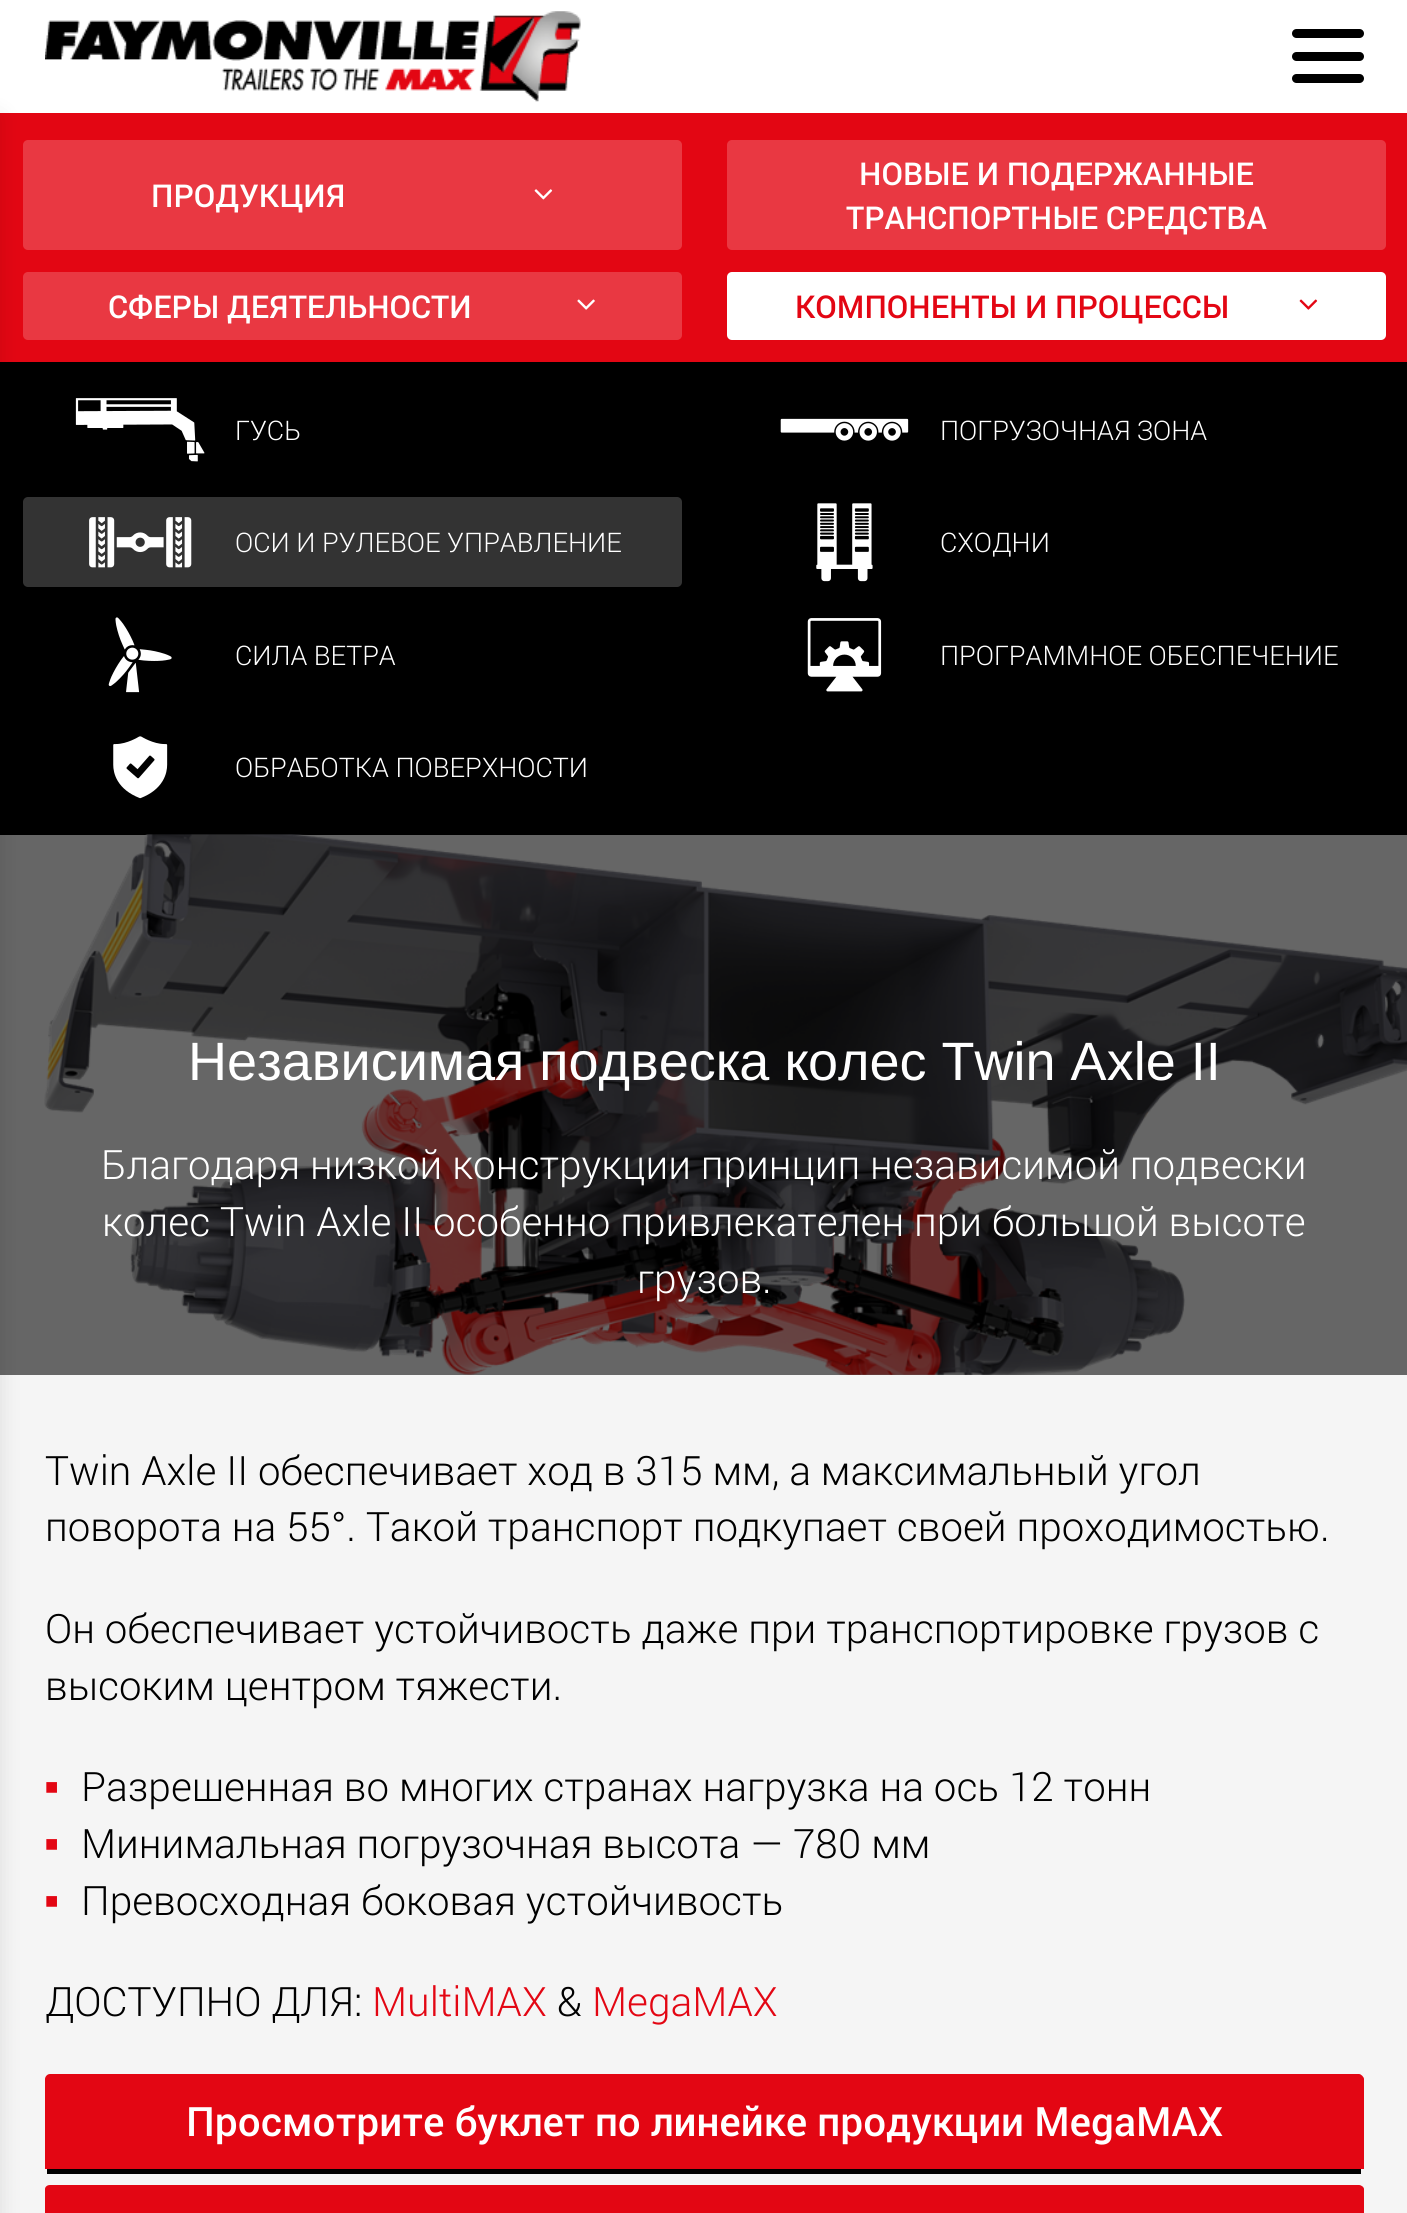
#include <cairo/cairo.h>
#include <math.h>
#include <stddef.h>

typedef struct { double x, y; const char *s; } line_t;
static cairo_t *cr;

static void rgb(unsigned color)
{
	cairo_set_source_rgb(cr, (color >> 16) / 255.0, (color >> 8 & 255) / 255.0, (color & 255) / 255.0);
}

static void rrect(double x, double y, double w, double h, double r)
{
	cairo_new_sub_path(cr);
	cairo_arc(cr, x + w - r, y + h - r, r, 0, M_PI / 2);
	cairo_arc(cr, x + r, y + h - r, r, M_PI / 2, M_PI);
	cairo_arc(cr, x + r, y + r, r, M_PI, 1.5 * M_PI);
	cairo_arc(cr, x + w - r, y + r, r, 1.5 * M_PI, 2 * M_PI);
	cairo_close_path(cr);
}

static void soft_shadow(double x, double y, double w, double h, double r, double blur, double alpha)
{
	cairo_push_group_with_content(cr, CAIRO_CONTENT_ALPHA);
	cairo_set_operator(cr, CAIRO_OPERATOR_SOURCE);
	for (int i = 15; i >= -15 && fmin(w, h) + blur * i / 3 > 0; i -= 2) {
		double e = blur * i / 6;
		cairo_set_source_rgba(cr, 0, 0, 0, alpha * erfc((i - 1) / 8.5) / 2);
		rrect(x - e, y - e, w + 2 * e, h + 2 * e, fmax(0, fmin(r + e + blur * .6, fmin(w, h) / 2 + e)));
		cairo_fill(cr);
	}
	cairo_pattern_t *soft = cairo_pop_group(cr);
	cairo_mask(cr, soft);
	cairo_pattern_destroy(soft);
}

static void image(const char *path, double x, double y, double w, double h)
{
	cairo_surface_t *image = cairo_image_surface_create_from_png(path);
	cairo_save(cr);
	cairo_set_source_surface(cr, image, x, y);
	cairo_rectangle(cr, x, y, w, h);
	cairo_fill(cr);
	cairo_restore(cr);
	cairo_surface_destroy(image);
}

int main(void) {
	cairo_surface_t *surface = cairo_image_surface_create(CAIRO_FORMAT_RGB24, 1407, 2213);
	cr = cairo_create(surface);
	cairo_font_options_t *options = cairo_font_options_create();
	cairo_font_options_set_hint_metrics(options, CAIRO_HINT_METRICS_OFF);
	cairo_font_options_set_hint_style(options, CAIRO_HINT_STYLE_NONE);
	cairo_set_font_options(cr, options);
	cairo_set_miter_limit(cr, 4);
	rgb(0xffffff);
	cairo_paint(cr);
	rgb(0x666666);
	cairo_rectangle(cr, 0, 835, 1407, 540);
	cairo_fill(cr);
	image("img/1.png", 45, 11, 536, 91);
	rgb(0x000000);
	rrect(1292, 29, 72, 9, 4.5);
	cairo_fill(cr);
	rrect(1292, 52, 72, 9, 4.5);
	cairo_fill(cr);
	rrect(1292, 74, 72, 9, 4.5);
	cairo_fill(cr);
	rgb(0xe30613);
	cairo_rectangle(cr, 0, 113, 1407, 249);
	cairo_fill(cr);
	rgb(0xe93842);
	rrect(23, 140, 659, 110, 5);
	cairo_fill(cr);
	rrect(23, 272, 659, 68, 5);
	cairo_fill(cr);
	rgb(0x000000);
	cairo_rectangle(cr, 0, 362, 1407, 473);
	cairo_fill(cr);
	rgb(0x333333);
	rrect(23, 497, 659, 90, 5);
	cairo_fill(cr);
	rgb(0xf5f5f5);
	cairo_rectangle(cr, 0, 1375, 1407, 838);
	cairo_fill(cr);
	rgb(0x000000);
	soft_shadow(-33, 117, 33, 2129, 0, 11, 0.1);
	image("img/2.png", 534, 189, 19, 11);
	rgb(0xe93842);
	rrect(727, 140, 659, 110, 5);
	cairo_fill(cr);
	image("img/3.png", 577, 299, 18, 11);
	rgb(0xffffff);
	rrect(727, 272, 659, 68, 5);
	cairo_fill(cr);
	image("img/4.png", 1299, 299, 19, 11);
	image("img/5.png", 75, 398, 130, 64);
	image("img/6.png", 780, 418, 129, 23);
	image("img/7.png", 89, 517, 103, 51);
	image("img/8.png", 816, 503, 57, 79);
	image("img/9.png", 108, 617, 64, 76);
	image("img/10.png", 807, 618, 75, 74);
	image("img/11.png", 113, 736, 55, 63);
	image("img/12.png", 44, 834, 1363, 541);
	rgb(0xe30613);
	cairo_new_path(cr);
	cairo_move_to(cr, 50, 2074);
	cairo_line_to(cr, 1359, 2074);
	cairo_curve_to(cr, 1361, 2074, 1364, 2077, 1364, 2079);
	cairo_line_to(cr, 1364, 2169);
	cairo_line_to(cr, 45, 2169);
	cairo_line_to(cr, 45, 2079);
	cairo_curve_to(cr, 45, 2077, 47, 2074, 50, 2074);
	cairo_close_path(cr);
	cairo_fill(cr);
	rgb(0x000000);
	cairo_rectangle(cr, 47, 2169, 1314, 5);
	cairo_fill(cr);
	rgb(0xe30613);
	cairo_new_path(cr);
	cairo_move_to(cr, 50, 2185);
	cairo_line_to(cr, 1359, 2185);
	cairo_curve_to(cr, 1361, 2185, 1364, 2187, 1364, 2189);
	cairo_line_to(cr, 1364, 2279);
	cairo_line_to(cr, 45, 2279);
	cairo_line_to(cr, 45, 2189);
	cairo_curve_to(cr, 45, 2187, 47, 2185, 50, 2185);
	cairo_close_path(cr);
	cairo_fill(cr);
	cairo_select_font_face(cr, "Roboto Medium", CAIRO_FONT_SLANT_NORMAL, CAIRO_FONT_WEIGHT_NORMAL);
	cairo_set_font_size(cr, 31.5);
	rgb(0xffffff);
	{
		static const line_t items[] = {
			{151, 207, "ПРОДУКЦИЯ"},
			{859, 185, "НОВЫЕ И ПОДЕРЖАННЫЕ"},
			{846, 229, "ТРАНСПОРТНЫЕ СРЕДСТВА"},
			{108, 318, "СФЕРЫ ДЕЯТЕЛЬНОСТИ"},
		};
		for (size_t i = 0; i < sizeof items / sizeof *items; i++) {
			cairo_move_to(cr, items[i].x, items[i].y);
			cairo_show_text(cr, items[i].s);
		}
	}
	rgb(0xe30613);
	cairo_move_to(cr, 795, 318);
	cairo_show_text(cr, "КОМПОНЕНТЫ И ПРОЦЕССЫ");
	cairo_select_font_face(cr, "Roboto Light", CAIRO_FONT_SLANT_NORMAL, CAIRO_FONT_WEIGHT_NORMAL);
	cairo_set_font_size(cr, 27);
	rgb(0xffffff);
	{
		static const line_t items[] = {
			{235, 440, "ГУСЬ"},
			{940, 440, "ПОГРУЗОЧНАЯ ЗОНА"},
			{235, 552, "ОСИ И РУЛЕВОЕ УПРАВЛЕНИЕ"},
			{940, 552, "СХОДНИ"},
			{235, 665, "СИЛА ВЕТРА"},
			{940, 665, "ПРОГРАММНОЕ ОБЕСПЕЧЕНИЕ"},
			{235, 777, "ОБРАБОТКА ПОВЕРХНОСТИ"},
		};
		for (size_t i = 0; i < sizeof items / sizeof *items; i++) {
			cairo_move_to(cr, items[i].x, items[i].y);
			cairo_show_text(cr, items[i].s);
		}
	}
	cairo_select_font_face(cr, "Liberation Sans", CAIRO_FONT_SLANT_NORMAL, CAIRO_FONT_WEIGHT_NORMAL);
	cairo_set_font_size(cr, 54);
	cairo_move_to(cr, 188, 1080);
	cairo_show_text(cr, "Независимая подвеска колес Twin Axle II");
	cairo_select_font_face(cr, "Roboto Light", CAIRO_FONT_SLANT_NORMAL, CAIRO_FONT_WEIGHT_NORMAL);
	cairo_set_font_size(cr, 40.5);
	{
		static const line_t items[] = {
			{101, 1179, "Благодаря низкой конструкции принцип независимой подвески"},
			{102, 1236, "колес Twin Axle II особенно привлекателен при большой высоте"},
			{637, 1293, "грузов."},
		};
		for (size_t i = 0; i < sizeof items / sizeof *items; i++) {
			cairo_move_to(cr, items[i].x, items[i].y);
			cairo_show_text(cr, items[i].s);
		}
	}
	rgb(0x000000);
	{
		static const line_t items[] = {
			{45, 1485, "Twin Axle II обеспечивает ход в 315 мм, а максимальный угол"},
			{45, 1541, "поворота на 55°. Такой транспорт подкупает своей проходимостью."},
			{45, 1643, "Он обеспечивает устойчивость даже при транспортировке грузов с"},
			{45, 1700, "высоким центром тяжести."},
		};
		for (size_t i = 0; i < sizeof items / sizeof *items; i++) {
			cairo_move_to(cr, items[i].x, items[i].y);
			cairo_show_text(cr, items[i].s);
		}
	}
	cairo_select_font_face(cr, "Liberation Sans", CAIRO_FONT_SLANT_NORMAL, CAIRO_FONT_WEIGHT_NORMAL);
	cairo_set_font_size(cr, 22);
	rgb(0xe30613);
	cairo_move_to(cr, 45, 1794);
	cairo_show_text(cr, "■");
	cairo_select_font_face(cr, "Roboto Light", CAIRO_FONT_SLANT_NORMAL, CAIRO_FONT_WEIGHT_NORMAL);
	cairo_set_font_size(cr, 40.5);
	rgb(0x000000);
	cairo_move_to(cr, 81, 1801);
	cairo_show_text(cr, "Разрешенная во многих странах нагрузка на ось 12 тонн");
	cairo_select_font_face(cr, "Liberation Sans", CAIRO_FONT_SLANT_NORMAL, CAIRO_FONT_WEIGHT_NORMAL);
	cairo_set_font_size(cr, 22);
	rgb(0xe30613);
	cairo_move_to(cr, 45, 1851);
	cairo_show_text(cr, "■");
	cairo_select_font_face(cr, "Roboto Light", CAIRO_FONT_SLANT_NORMAL, CAIRO_FONT_WEIGHT_NORMAL);
	cairo_set_font_size(cr, 40.5);
	rgb(0x000000);
	cairo_move_to(cr, 81, 1858);
	cairo_show_text(cr, "Минимальная погрузочная высота — 780 мм");
	cairo_select_font_face(cr, "Liberation Sans", CAIRO_FONT_SLANT_NORMAL, CAIRO_FONT_WEIGHT_NORMAL);
	cairo_set_font_size(cr, 22);
	rgb(0xe30613);
	cairo_move_to(cr, 45, 1908);
	cairo_show_text(cr, "■");
	cairo_select_font_face(cr, "Roboto Light", CAIRO_FONT_SLANT_NORMAL, CAIRO_FONT_WEIGHT_NORMAL);
	cairo_set_font_size(cr, 40.5);
	rgb(0x000000);
	cairo_move_to(cr, 81, 1915);
	cairo_show_text(cr, "Превосходная боковая устойчивость");
	cairo_move_to(cr, 45, 2016);
	cairo_show_text(cr, "ДОСТУПНО ДЛЯ:");
	rgb(0xe30613);
	cairo_move_to(cr, 372, 2016);
	cairo_show_text(cr, "MultiMAX");
	rgb(0x000000);
	cairo_move_to(cr, 557, 2016);
	cairo_show_text(cr, "&");
	rgb(0xe30613);
	cairo_move_to(cr, 592, 2016);
	cairo_show_text(cr, "MegaMAX");
	cairo_select_font_face(cr, "Roboto Medium", CAIRO_FONT_SLANT_NORMAL, CAIRO_FONT_WEIGHT_NORMAL);
	rgb(0xffffff);
	cairo_move_to(cr, 186, 2136);
	cairo_show_text(cr, "Просмотрите буклет по линейке продукции MegaMAX");
	cairo_surface_write_to_png(surface, "page.png");
	cairo_font_options_destroy(options);
	cairo_destroy(cr);
	cairo_surface_destroy(surface);
	return 0;
}
